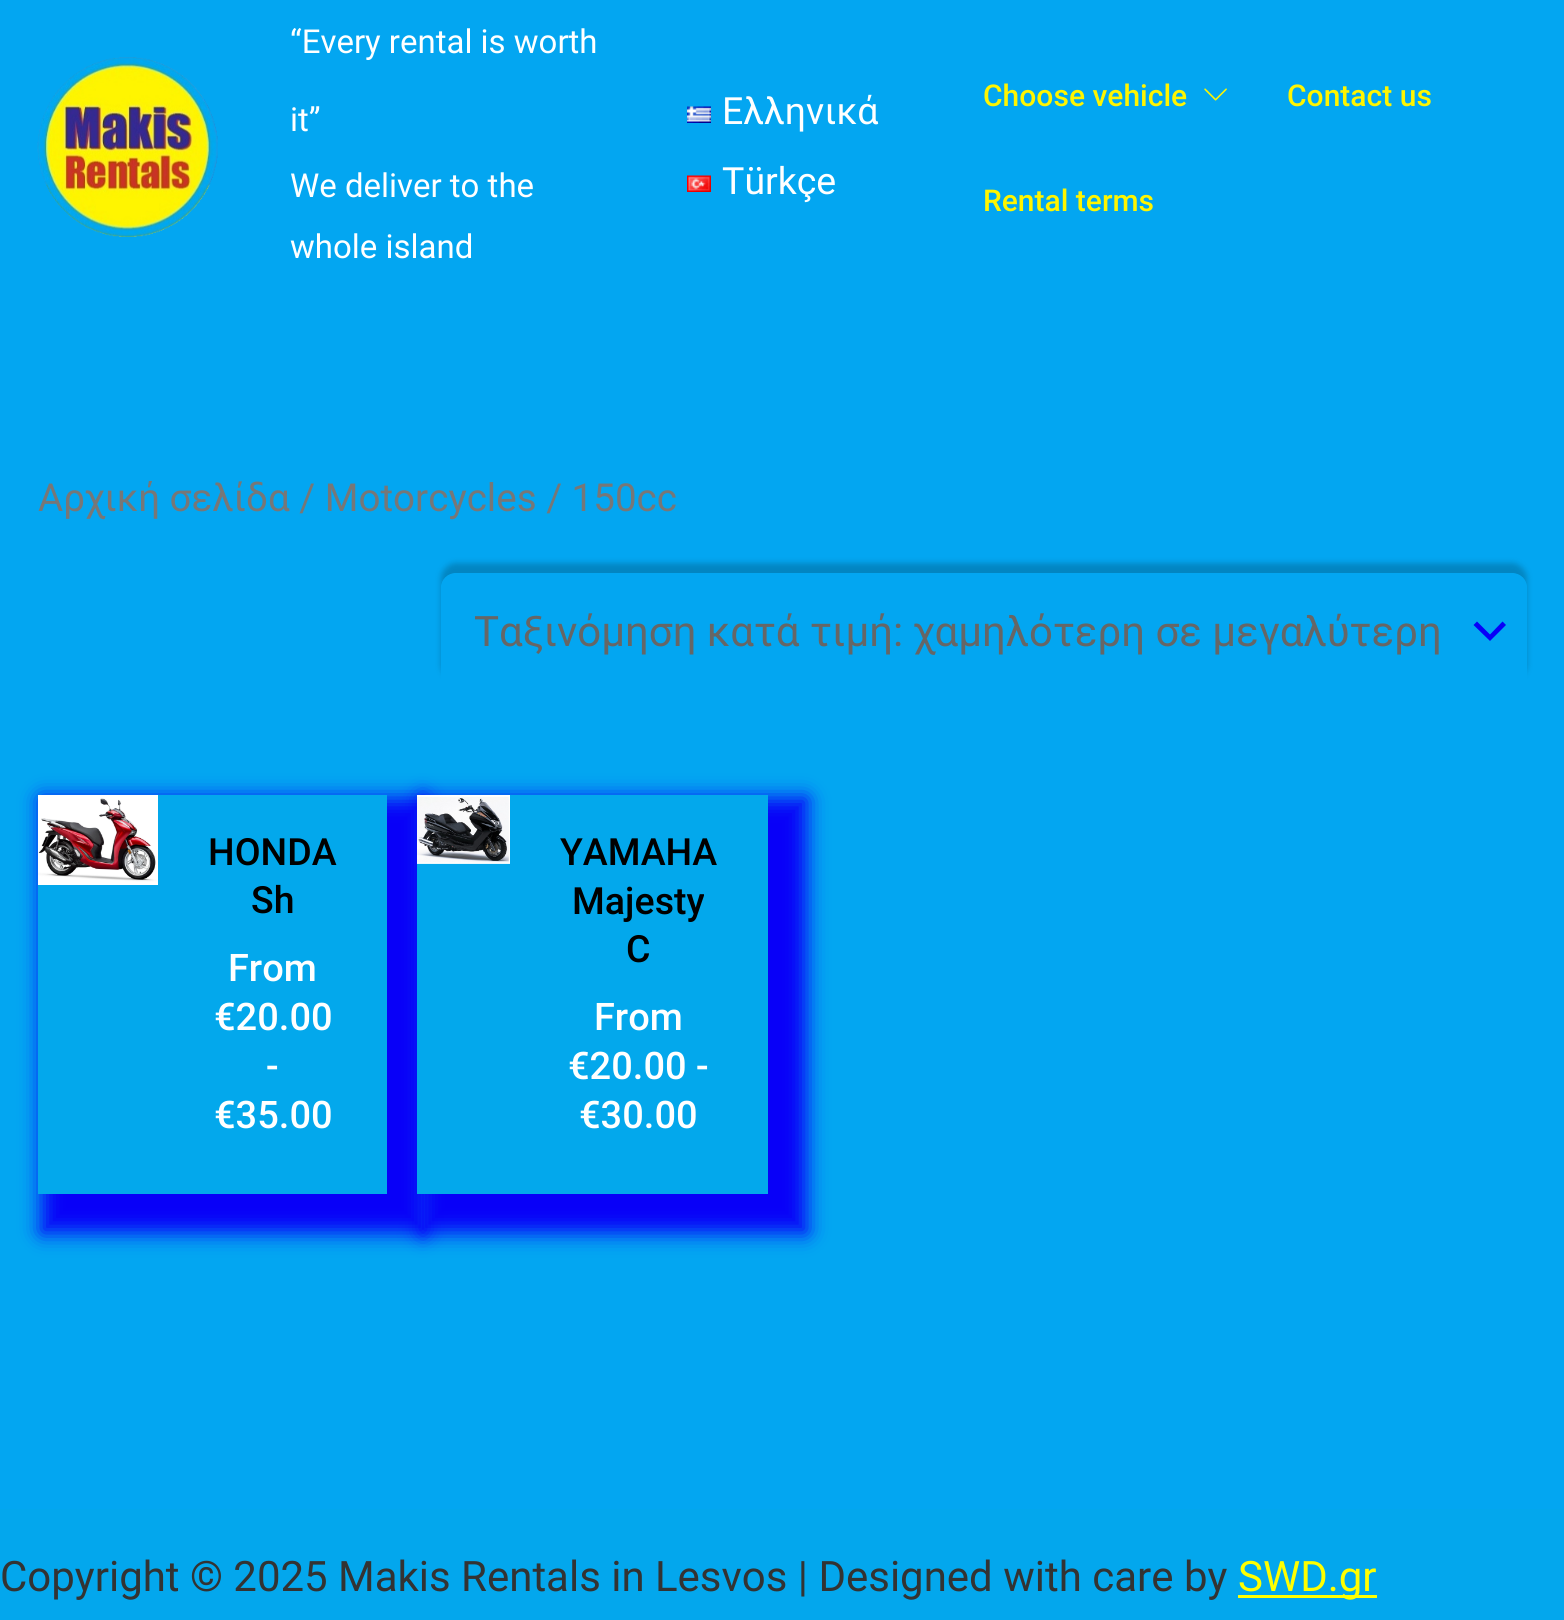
#include <cairo/cairo.h>
#include <math.h>
#include <stddef.h>

typedef struct { double x, y; const char *s; } line_t;
static cairo_t *cr;

static void rgb(unsigned color)
{
	cairo_set_source_rgb(cr, (color >> 16) / 255.0, (color >> 8 & 255) / 255.0, (color & 255) / 255.0);
}

static void rrect(double x, double y, double w, double h, double r)
{
	cairo_new_sub_path(cr);
	cairo_arc(cr, x + w - r, y + h - r, r, 0, M_PI / 2);
	cairo_arc(cr, x + r, y + h - r, r, M_PI / 2, M_PI);
	cairo_arc(cr, x + r, y + r, r, M_PI, 1.5 * M_PI);
	cairo_arc(cr, x + w - r, y + r, r, 1.5 * M_PI, 2 * M_PI);
	cairo_close_path(cr);
}

static void soft_shadow(double x, double y, double w, double h, double r, double blur, double alpha)
{
	cairo_push_group_with_content(cr, CAIRO_CONTENT_ALPHA);
	cairo_set_operator(cr, CAIRO_OPERATOR_SOURCE);
	for (int i = 15; i >= -15 && fmin(w, h) + blur * i / 3 > 0; i -= 2) {
		double e = blur * i / 6;
		cairo_set_source_rgba(cr, 0, 0, 0, alpha * erfc((i - 1) / 8.5) / 2);
		rrect(x - e, y - e, w + 2 * e, h + 2 * e, fmax(0, fmin(r + e + blur * .6, fmin(w, h) / 2 + e)));
		cairo_fill(cr);
	}
	cairo_pattern_t *soft = cairo_pop_group(cr);
	cairo_mask(cr, soft);
	cairo_pattern_destroy(soft);
}

static void image(const char *path, double x, double y, double w, double h)
{
	cairo_surface_t *image = cairo_image_surface_create_from_png(path);
	cairo_save(cr);
	cairo_set_source_surface(cr, image, x, y);
	cairo_rectangle(cr, x, y, w, h);
	cairo_fill(cr);
	cairo_restore(cr);
	cairo_surface_destroy(image);
}

int main(void) {
	cairo_surface_t *surface = cairo_image_surface_create(CAIRO_FORMAT_RGB24, 1564, 1620);
	cr = cairo_create(surface);
	cairo_font_options_t *options = cairo_font_options_create();
	cairo_font_options_set_hint_metrics(options, CAIRO_HINT_METRICS_OFF);
	cairo_font_options_set_hint_style(options, CAIRO_HINT_STYLE_NONE);
	cairo_set_font_options(cr, options);
	cairo_set_miter_limit(cr, 4);
	rgb(0x03a6f1);
	cairo_paint(cr);
	image("img/1.png", 37, 57, 181, 180);
	image("img/2.png", 687, 106, 24, 17);
	image("img/3.png", 687, 175, 24, 17);
	image("img/4.png", 1204, 88, 23, 13);
	cairo_save(cr);
	cairo_set_fill_rule(cr, CAIRO_FILL_RULE_EVEN_ODD);
	cairo_new_path(cr);
	cairo_move_to(cr, 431, 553);
	cairo_line_to(cr, 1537, 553);
	cairo_line_to(cr, 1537, 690);
	cairo_line_to(cr, 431, 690);
	cairo_close_path(cr);
	cairo_move_to(cr, 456, 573);
	cairo_line_to(cr, 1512, 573);
	cairo_curve_to(cr, 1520.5, 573, 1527, 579.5, 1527, 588);
	cairo_line_to(cr, 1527, 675);
	cairo_curve_to(cr, 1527, 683.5, 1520.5, 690, 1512, 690);
	cairo_line_to(cr, 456, 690);
	cairo_curve_to(cr, 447.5, 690, 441, 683.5, 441, 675);
	cairo_line_to(cr, 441, 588);
	cairo_curve_to(cr, 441, 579.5, 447.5, 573, 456, 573);
	cairo_close_path(cr);
	cairo_clip(cr);
	rgb(0x000000);
	soft_shadow(441, 563, 1086, 117, 15, 3, 0.2);
	cairo_restore(cr);
	rgb(0x0800f8);
	cairo_new_path(cr);
	cairo_move_to(cr, 1473.5, 625);
	cairo_line_to(cr, 1490, 641);
	cairo_line_to(cr, 1506, 625);
	cairo_line_to(cr, 1502.5, 621.5);
	cairo_line_to(cr, 1490, 634.5);
	cairo_line_to(cr, 1477, 621.5);
	cairo_close_path(cr);
	cairo_fill(cr);
	rgb(0x0800f8);
	soft_shadow(41, 798, 385, 435, 0, 10, 1);
	rgb(0x03a8ec);
	cairo_rectangle(cr, 38, 795, 349, 399);
	cairo_fill(cr);
	image("img/5.png", 38, 795, 120, 90);
	rgb(0x0800f8);
	soft_shadow(420, 798, 387, 435, 0, 10, 1);
	rgb(0x03a8ec);
	cairo_rectangle(cr, 417, 795, 351, 399);
	cairo_fill(cr);
	image("img/6.png", 417, 795, 93, 69);
	rgb(0x03a7ed);
	cairo_rectangle(cr, 0, 1509, 1564, 111);
	cairo_fill(cr);
	rgb(0xffff00);
	cairo_rectangle(cr, 1238, 1595, 139, 3);
	cairo_fill(cr);
	cairo_select_font_face(cr, "Roboto", CAIRO_FONT_SLANT_NORMAL, CAIRO_FONT_WEIGHT_NORMAL);
	cairo_set_font_size(cr, 33);
	rgb(0xffffff);
	{
		static const line_t items[] = {
			{290, 53, "“Every rental is worth"},
			{290, 131, "it”"},
			{290, 197, "We deliver to the"},
			{290, 258, "whole island"},
		};
		for (size_t i = 0; i < sizeof items / sizeof *items; i++) {
			cairo_move_to(cr, items[i].x, items[i].y);
			cairo_show_text(cr, items[i].s);
		}
	}
	cairo_set_font_size(cr, 37.5);
	cairo_move_to(cr, 722, 124);
	cairo_show_text(cr, "Ελληνικά");
	cairo_move_to(cr, 722, 194);
	cairo_show_text(cr, "Türkçe");
	cairo_select_font_face(cr, "Roboto Medium", CAIRO_FONT_SLANT_NORMAL, CAIRO_FONT_WEIGHT_NORMAL);
	cairo_set_font_size(cr, 30);
	rgb(0xfff500);
	{
		static const line_t items[] = {
			{983, 106, "Choose vehicle"},
			{1287, 106, "Contact us"},
			{983, 211, "Rental terms"},
		};
		for (size_t i = 0; i < sizeof items / sizeof *items; i++) {
			cairo_move_to(cr, items[i].x, items[i].y);
			cairo_show_text(cr, items[i].s);
		}
	}
	cairo_select_font_face(cr, "Roboto", CAIRO_FONT_SLANT_NORMAL, CAIRO_FONT_WEIGHT_NORMAL);
	cairo_set_font_size(cr, 38.6);
	rgb(0x777777);
	cairo_move_to(cr, 38, 511);
	cairo_show_text(cr, "Αρχική σελίδα / Motorcycles / 150cc");
	cairo_set_font_size(cr, 42);
	rgb(0x666666);
	cairo_move_to(cr, 474, 646);
	cairo_show_text(cr, "Ταξινόμηση κατά τιμή: χαμηλότερη σε μεγαλύτερη");
	cairo_select_font_face(cr, "Roboto Medium", CAIRO_FONT_SLANT_NORMAL, CAIRO_FONT_WEIGHT_NORMAL);
	cairo_set_font_size(cr, 37.5);
	rgb(0x000000);
	cairo_move_to(cr, 208, 865);
	cairo_show_text(cr, "HONDA");
	cairo_move_to(cr, 251, 913);
	cairo_show_text(cr, "Sh");
	cairo_set_font_size(cr, 38);
	rgb(0xffffff);
	{
		static const line_t items[] = {
			{228, 981, "From"},
			{214, 1030, "€20.00"},
			{266, 1079, "-"},
			{214, 1128, "€35.00"},
		};
		for (size_t i = 0; i < sizeof items / sizeof *items; i++) {
			cairo_move_to(cr, items[i].x, items[i].y);
			cairo_show_text(cr, items[i].s);
		}
	}
	cairo_set_font_size(cr, 37.5);
	rgb(0x000000);
	{
		static const line_t items[] = {
			{560, 865, "YAMAHA"},
			{572, 914, "Majesty"},
			{626, 962, "C"},
		};
		for (size_t i = 0; i < sizeof items / sizeof *items; i++) {
			cairo_move_to(cr, items[i].x, items[i].y);
			cairo_show_text(cr, items[i].s);
		}
	}
	cairo_set_font_size(cr, 38);
	rgb(0xffffff);
	{
		static const line_t items[] = {
			{594, 1030, "From"},
			{568, 1079, "€20.00 -"},
			{579, 1128, "€30.00"},
		};
		for (size_t i = 0; i < sizeof items / sizeof *items; i++) {
			cairo_move_to(cr, items[i].x, items[i].y);
			cairo_show_text(cr, items[i].s);
		}
	}
	cairo_select_font_face(cr, "Roboto", CAIRO_FONT_SLANT_NORMAL, CAIRO_FONT_WEIGHT_NORMAL);
	cairo_set_font_size(cr, 42);
	rgb(0x333333);
	cairo_move_to(cr, 0, 1591);
	cairo_show_text(cr, "Copyright © 2025 Makis Rentals in Lesvos | Designed with care by");
	rgb(0xffff00);
	cairo_move_to(cr, 1238, 1591);
	cairo_show_text(cr, "SWD.gr");
	cairo_surface_write_to_png(surface, "page.png");
	cairo_font_options_destroy(options);
	cairo_destroy(cr);
	cairo_surface_destroy(surface);
	return 0;
}
